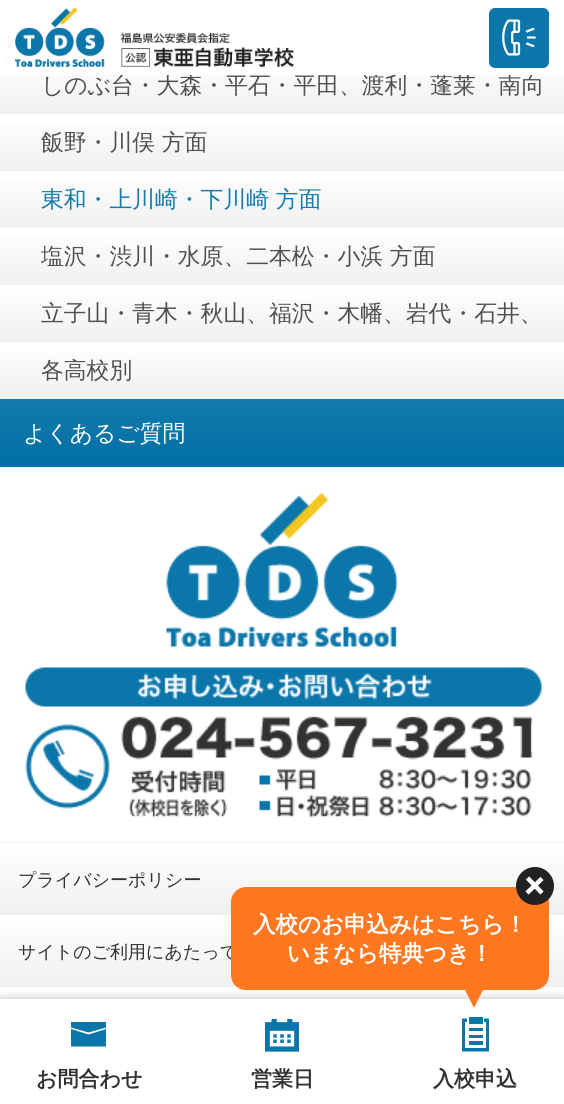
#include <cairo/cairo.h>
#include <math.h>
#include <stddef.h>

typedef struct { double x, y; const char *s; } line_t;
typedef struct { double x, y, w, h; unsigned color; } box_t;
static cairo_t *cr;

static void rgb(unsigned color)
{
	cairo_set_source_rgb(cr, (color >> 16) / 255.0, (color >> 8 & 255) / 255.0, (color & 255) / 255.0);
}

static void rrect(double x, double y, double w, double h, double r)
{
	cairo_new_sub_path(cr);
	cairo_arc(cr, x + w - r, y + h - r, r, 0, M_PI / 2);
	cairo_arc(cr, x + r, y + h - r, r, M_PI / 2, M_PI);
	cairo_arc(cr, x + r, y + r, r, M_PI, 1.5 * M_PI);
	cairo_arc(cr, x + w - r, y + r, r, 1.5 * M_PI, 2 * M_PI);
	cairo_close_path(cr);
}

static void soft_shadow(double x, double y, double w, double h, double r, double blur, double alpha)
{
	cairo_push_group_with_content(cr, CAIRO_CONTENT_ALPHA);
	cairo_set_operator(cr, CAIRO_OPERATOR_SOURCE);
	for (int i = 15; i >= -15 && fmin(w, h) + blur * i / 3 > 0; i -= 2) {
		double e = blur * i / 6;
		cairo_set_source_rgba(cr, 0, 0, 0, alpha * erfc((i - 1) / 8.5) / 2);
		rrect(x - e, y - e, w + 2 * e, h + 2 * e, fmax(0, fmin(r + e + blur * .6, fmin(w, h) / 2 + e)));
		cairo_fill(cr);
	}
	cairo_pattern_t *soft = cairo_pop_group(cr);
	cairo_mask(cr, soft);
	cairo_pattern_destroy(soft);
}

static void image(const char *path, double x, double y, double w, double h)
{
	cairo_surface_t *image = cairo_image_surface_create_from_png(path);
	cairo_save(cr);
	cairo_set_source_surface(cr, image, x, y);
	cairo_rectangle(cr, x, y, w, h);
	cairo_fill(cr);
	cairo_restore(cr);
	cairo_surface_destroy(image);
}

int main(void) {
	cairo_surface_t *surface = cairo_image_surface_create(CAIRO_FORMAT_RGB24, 564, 1104);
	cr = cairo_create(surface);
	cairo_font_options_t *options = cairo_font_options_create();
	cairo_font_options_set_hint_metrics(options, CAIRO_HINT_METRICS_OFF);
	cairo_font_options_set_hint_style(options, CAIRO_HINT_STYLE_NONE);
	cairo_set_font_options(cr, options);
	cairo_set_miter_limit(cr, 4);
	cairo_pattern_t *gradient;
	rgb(0xffffff);
	cairo_paint(cr);
	image("img/1.png", 15, 7, 279, 61);
	rgb(0x0b76a9);
	rrect(489, 8, 60, 60, 6);
	cairo_fill(cr);
	image("img/2.png", 502, 19, 34, 37);
	gradient = cairo_pattern_create_linear(0, 57, 0, 114);
	cairo_pattern_add_color_stop_rgba(gradient, 0, 1, 1, 1, 1);
	cairo_pattern_add_color_stop_rgba(gradient, 1, 0.941, 0.941, 0.941, 1);
	cairo_set_source(cr, gradient);
	cairo_pattern_destroy(gradient);
	cairo_rectangle(cr, 0, 75, 564, 39);
	cairo_fill(cr);
	gradient = cairo_pattern_create_linear(0, 114, 0, 171);
	cairo_pattern_add_color_stop_rgba(gradient, 0, 1, 1, 1, 1);
	cairo_pattern_add_color_stop_rgba(gradient, 1, 0.941, 0.941, 0.941, 1);
	cairo_set_source(cr, gradient);
	cairo_pattern_destroy(gradient);
	cairo_rectangle(cr, 0, 124, 564, 47);
	cairo_fill(cr);
	gradient = cairo_pattern_create_linear(0, 171, 0, 228);
	cairo_pattern_add_color_stop_rgba(gradient, 0, 1, 1, 1, 1);
	cairo_pattern_add_color_stop_rgba(gradient, 1, 0.941, 0.941, 0.941, 1);
	cairo_set_source(cr, gradient);
	cairo_pattern_destroy(gradient);
	cairo_rectangle(cr, 0, 181, 564, 47);
	cairo_fill(cr);
	gradient = cairo_pattern_create_linear(0, 228, 0, 285);
	cairo_pattern_add_color_stop_rgba(gradient, 0, 1, 1, 1, 1);
	cairo_pattern_add_color_stop_rgba(gradient, 1, 0.941, 0.941, 0.941, 1);
	cairo_set_source(cr, gradient);
	cairo_pattern_destroy(gradient);
	cairo_rectangle(cr, 0, 238, 564, 47);
	cairo_fill(cr);
	gradient = cairo_pattern_create_linear(0, 285, 0, 342);
	cairo_pattern_add_color_stop_rgba(gradient, 0, 1, 1, 1, 1);
	cairo_pattern_add_color_stop_rgba(gradient, 1, 0.941, 0.941, 0.941, 1);
	cairo_set_source(cr, gradient);
	cairo_pattern_destroy(gradient);
	cairo_rectangle(cr, 0, 295, 564, 47);
	cairo_fill(cr);
	gradient = cairo_pattern_create_linear(0, 342, 0, 399);
	cairo_pattern_add_color_stop_rgba(gradient, 0, 1, 1, 1, 1);
	cairo_pattern_add_color_stop_rgba(gradient, 1, 0.941, 0.941, 0.941, 1);
	cairo_set_source(cr, gradient);
	cairo_pattern_destroy(gradient);
	cairo_rectangle(cr, 0, 352, 564, 47);
	cairo_fill(cr);
	gradient = cairo_pattern_create_linear(0, 399, 0, 467);
	cairo_pattern_add_color_stop_rgba(gradient, 0, 0.078, 0.482, 0.675, 1);
	cairo_pattern_add_color_stop_rgba(gradient, 1, 0, 0.435, 0.647, 1);
	cairo_set_source(cr, gradient);
	cairo_pattern_destroy(gradient);
	cairo_rectangle(cr, 0, 399, 564, 68);
	cairo_fill(cr);
	image("img/3.png", 166, 492, 232, 155);
	image("img/4.png", 25, 667, 517, 151);
	rgb(0xf0f0f0);
	cairo_rectangle(cr, 0, 842, 564, 1);
	cairo_fill(cr);
	gradient = cairo_pattern_create_linear(0, 843, 0, 915);
	cairo_pattern_add_color_stop_rgba(gradient, 0, 1, 1, 1, 1);
	cairo_pattern_add_color_stop_rgba(gradient, 1, 0.941, 0.941, 0.941, 1);
	cairo_set_source(cr, gradient);
	cairo_pattern_destroy(gradient);
	cairo_rectangle(cr, 0, 855, 564, 60);
	cairo_fill(cr);
	gradient = cairo_pattern_create_linear(0, 915, 0, 987);
	cairo_pattern_add_color_stop_rgba(gradient, 0, 1, 1, 1, 1);
	cairo_pattern_add_color_stop_rgba(gradient, 1, 0.941, 0.941, 0.941, 1);
	cairo_set_source(cr, gradient);
	cairo_pattern_destroy(gradient);
	cairo_rectangle(cr, 0, 927, 564, 60);
	cairo_fill(cr);
	rgb(0x000000);
	soft_shadow(0, 996, 564, 105, 0, 3, 0.15);
	rgb(0xffffff);
	cairo_rectangle(cr, 0, 999, 564, 105);
	cairo_fill(cr);
	rgb(0x0b76a9);
	cairo_new_path(cr);
	cairo_move_to(cr, 88.5, 1034.5);
	cairo_line_to(cr, 71, 1029);
	cairo_line_to(cr, 71, 1046.5);
	cairo_line_to(cr, 106, 1046.5);
	cairo_line_to(cr, 106, 1029);
	cairo_close_path(cr);
	cairo_fill(cr);
	cairo_new_path(cr);
	cairo_move_to(cr, 71, 1027.5);
	cairo_line_to(cr, 88.5, 1032.5);
	cairo_line_to(cr, 106, 1027.5);
	cairo_line_to(cr, 106, 1022);
	cairo_line_to(cr, 71, 1022);
	cairo_close_path(cr);
	cairo_fill(cr);
	image("img/5.png", 265, 1019, 34, 33);
	cairo_save(cr);
	cairo_rectangle(cr, 462, 1017, 27, 35);
	cairo_clip(cr);
	cairo_new_path(cr);
	cairo_move_to(cr, 484, 1018.5);
	cairo_line_to(cr, 484, 1022);
	cairo_line_to(cr, 486, 1022);
	cairo_line_to(cr, 486, 1048);
	cairo_line_to(cr, 465, 1048);
	cairo_line_to(cr, 465, 1022);
	cairo_line_to(cr, 467, 1022);
	cairo_line_to(cr, 467, 1018.5);
	cairo_line_to(cr, 461.5, 1018.5);
	cairo_line_to(cr, 461.5, 1051.5);
	cairo_line_to(cr, 489.5, 1051.5);
	cairo_line_to(cr, 489.5, 1018.5);
	cairo_close_path(cr);
	cairo_fill(cr);
	cairo_restore(cr);
	{
		static const box_t items[] = {
			{469, 1017, 14, 7, 0x0b76a9},
			{469, 1028, 14, 3, 0x0b76a9},
			{469, 1035, 14, 3, 0x0b76a9},
			{469, 1041, 14, 4, 0x0b76a9},
		};
		for (size_t i = 0; i < sizeof items / sizeof *items; i++) {
			rgb(items[i].color);
			cairo_rectangle(cr, items[i].x, items[i].y, items[i].w, items[i].h);
			cairo_fill(cr);
		}
	}
	cairo_select_font_face(cr, "WenQuanYi Zen Hei Medium", CAIRO_FONT_SLANT_NORMAL, CAIRO_FONT_WEIGHT_NORMAL);
	cairo_set_font_size(cr, 22.8);
	rgb(0x505050);
	cairo_move_to(cr, 41, 93);
	cairo_show_text(cr, "しのぶ台・大森・平石・平田、渡利・蓬莱・南向");
	rgb(0xffffff);
	cairo_rectangle(cr, 121, 73, 411, 2);
	cairo_fill(cr);
	rgb(0x505050);
	cairo_move_to(cr, 41, 150);
	cairo_show_text(cr, "飯野・川俣 方面");
	rgb(0x147bac);
	cairo_move_to(cr, 41, 207);
	cairo_show_text(cr, "東和・上川崎・下川崎 方面");
	rgb(0x505050);
	{
		static const line_t items[] = {
			{41, 264, "塩沢・渋川・水原、二本松・小浜 方面"},
			{41, 321, "立子山・青木・秋山、福沢・木幡、岩代・石井、"},
			{41, 378, "各高校別"},
		};
		for (size_t i = 0; i < sizeof items / sizeof *items; i++) {
			cairo_move_to(cr, items[i].x, items[i].y);
			cairo_show_text(cr, items[i].s);
		}
	}
	rgb(0xffffff);
	cairo_move_to(cr, 23, 441);
	cairo_show_text(cr, "よくあるご質問");
	cairo_set_font_size(cr, 18);
	rgb(0x323232);
	cairo_move_to(cr, 18, 886);
	cairo_show_text(cr, "プライバシーポリシー");
	cairo_move_to(cr, 18, 958);
	cairo_show_text(cr, "サイトのご利用にあたって");
	rgb(0xff781f);
	rrect(231, 887, 318, 103, 15);
	cairo_fill(cr);
	rgb(0x222222);
	cairo_arc(cr, 535, 886, 19, 0, 2 * M_PI);
	cairo_fill(cr);
	cairo_new_path(cr);
	cairo_move_to(cr, 527.5, 878);
	cairo_line_to(cr, 542, 893);
	cairo_move_to(cr, 527, 893);
	cairo_line_to(cr, 542, 878.5);
	rgb(0xffffff);
	cairo_set_line_width(cr, 4.5);
	cairo_stroke(cr);
	cairo_select_font_face(cr, "WenQuanYi Zen Hei", CAIRO_FONT_SLANT_NORMAL, CAIRO_FONT_WEIGHT_BOLD);
	cairo_set_font_size(cr, 22.5);
	cairo_move_to(cr, 253, 932);
	cairo_show_text(cr, "入校のお申込みはこちら！");
	cairo_move_to(cr, 287, 961);
	cairo_show_text(cr, "いまなら特典つき！");
	rgb(0xff781f);
	cairo_new_path(cr);
	cairo_move_to(cr, 459, 978);
	cairo_line_to(cr, 489, 978);
	cairo_line_to(cr, 474, 1008);
	cairo_close_path(cr);
	cairo_fill(cr);
	cairo_set_font_size(cr, 21);
	rgb(0x323232);
	{
		static const line_t items[] = {
			{36, 1086, "お問合わせ"},
			{251, 1086, "営業日"},
			{433, 1086, "入校申込"},
		};
		for (size_t i = 0; i < sizeof items / sizeof *items; i++) {
			cairo_move_to(cr, items[i].x, items[i].y);
			cairo_show_text(cr, items[i].s);
		}
	}
	cairo_surface_write_to_png(surface, "page.png");
	cairo_font_options_destroy(options);
	cairo_destroy(cr);
	cairo_surface_destroy(surface);
	return 0;
}
